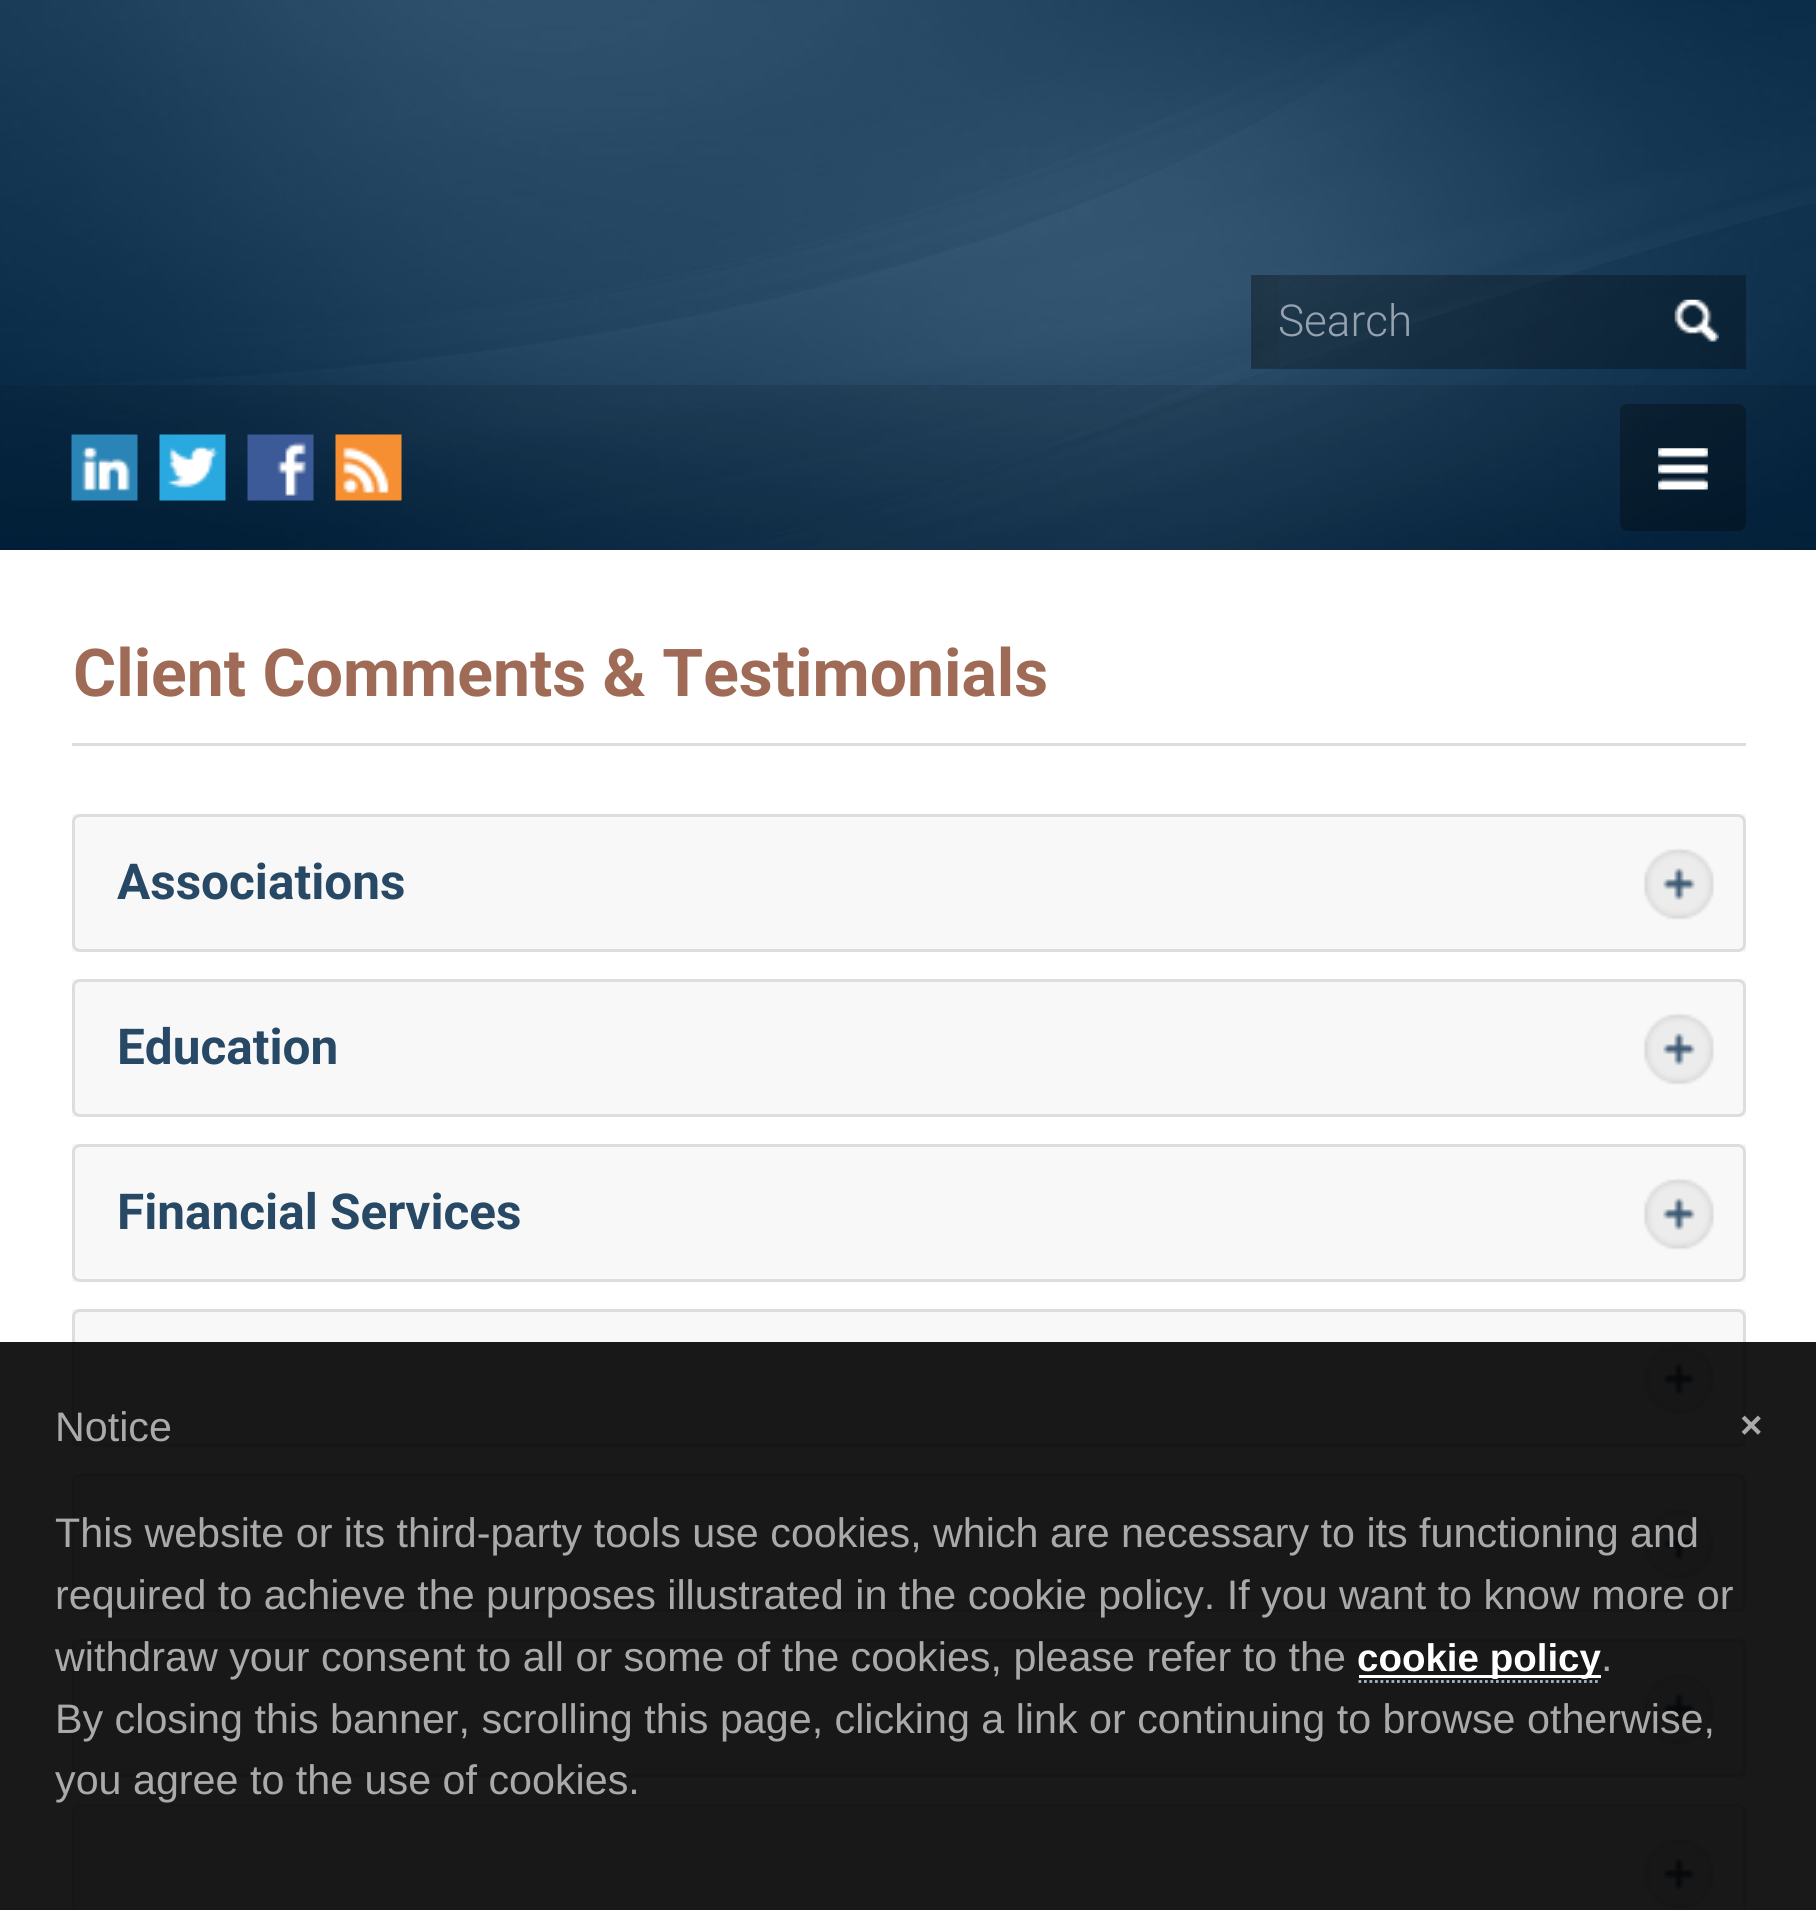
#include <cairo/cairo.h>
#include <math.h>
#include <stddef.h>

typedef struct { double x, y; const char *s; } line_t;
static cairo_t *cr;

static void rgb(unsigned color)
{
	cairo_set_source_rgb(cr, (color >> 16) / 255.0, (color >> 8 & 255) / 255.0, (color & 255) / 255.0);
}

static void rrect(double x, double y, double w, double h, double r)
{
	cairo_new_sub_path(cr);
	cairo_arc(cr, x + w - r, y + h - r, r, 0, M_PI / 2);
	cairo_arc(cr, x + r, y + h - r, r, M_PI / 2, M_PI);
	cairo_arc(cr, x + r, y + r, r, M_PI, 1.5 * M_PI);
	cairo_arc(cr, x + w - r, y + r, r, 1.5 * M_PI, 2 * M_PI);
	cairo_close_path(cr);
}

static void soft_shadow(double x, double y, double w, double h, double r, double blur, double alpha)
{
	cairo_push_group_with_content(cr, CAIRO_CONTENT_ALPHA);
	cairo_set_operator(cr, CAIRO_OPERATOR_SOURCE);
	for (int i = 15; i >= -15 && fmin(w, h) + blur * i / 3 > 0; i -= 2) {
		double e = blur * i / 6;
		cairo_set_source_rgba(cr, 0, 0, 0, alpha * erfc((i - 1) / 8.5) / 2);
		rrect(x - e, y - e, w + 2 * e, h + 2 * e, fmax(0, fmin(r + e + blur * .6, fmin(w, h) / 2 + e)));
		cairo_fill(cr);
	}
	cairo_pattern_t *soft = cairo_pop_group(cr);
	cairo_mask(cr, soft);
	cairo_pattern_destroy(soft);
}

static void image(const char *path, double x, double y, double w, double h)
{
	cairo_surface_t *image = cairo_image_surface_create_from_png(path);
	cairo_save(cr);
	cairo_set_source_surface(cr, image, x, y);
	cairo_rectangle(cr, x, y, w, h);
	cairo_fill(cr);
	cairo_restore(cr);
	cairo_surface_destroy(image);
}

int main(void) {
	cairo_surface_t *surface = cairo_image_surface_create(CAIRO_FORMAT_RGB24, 1816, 1910);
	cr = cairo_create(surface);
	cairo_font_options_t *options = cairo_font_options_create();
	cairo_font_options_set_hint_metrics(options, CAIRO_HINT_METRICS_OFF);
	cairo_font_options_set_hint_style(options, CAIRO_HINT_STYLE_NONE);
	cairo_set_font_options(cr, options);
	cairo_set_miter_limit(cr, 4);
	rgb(0xffffff);
	cairo_paint(cr);
	image("img/1.png", 0, 0, 1816, 550);
	image("img/2.png", 1251, 275, 28, 93);
	cairo_set_source_rgba(cr, 0, 0, 0, 0.3);
	cairo_rectangle(cr, 1251, 275, 495, 94);
	cairo_fill(cr);
	image("img/3.png", 1674, 299, 45, 43);
	cairo_set_source_rgba(cr, 0, 0, 0, 0.12);
	cairo_rectangle(cr, 0, 385, 1816, 165);
	cairo_fill(cr);
	image("img/4.png", 71, 434, 67, 67);
	image("img/5.png", 159, 434, 67, 67);
	image("img/6.png", 247, 434, 67, 67);
	image("img/7.png", 335, 434, 67, 67);
	cairo_set_source_rgba(cr, 0, 0, 0, 0.3);
	rrect(1620, 404, 126, 127, 8);
	cairo_fill(cr);
	image("img/8.png", 1658, 448, 50, 42);
	rgb(0xdddddd);
	cairo_rectangle(cr, 72, 743, 1674, 3);
	cairo_fill(cr);
	cairo_set_source_rgba(cr, 0, 0, 0, 0.03);
	cairo_rectangle(cr, 72, 814, 1674, 138);
	cairo_fill(cr);
	image("img/9.png", 1643, 848, 71, 72);
	rrect(73.5, 815.5, 1671, 135, 6.5);
	rgb(0xdddddd);
	cairo_set_line_width(cr, 3);
	cairo_stroke(cr);
	cairo_set_source_rgba(cr, 0, 0, 0, 0.03);
	cairo_rectangle(cr, 72, 979, 1674, 138);
	cairo_fill(cr);
	image("img/9.png", 1643, 1013, 71, 72);
	rrect(73.5, 980.5, 1671, 135, 6.5);
	rgb(0xdddddd);
	cairo_stroke(cr);
	cairo_set_source_rgba(cr, 0, 0, 0, 0.03);
	cairo_rectangle(cr, 72, 1144, 1674, 138);
	cairo_fill(cr);
	image("img/9.png", 1643, 1178, 71, 72);
	rrect(73.5, 1145.5, 1671, 135, 6.5);
	rgb(0xdddddd);
	cairo_stroke(cr);
	cairo_set_source_rgba(cr, 0, 0, 0, 0.03);
	cairo_rectangle(cr, 72, 1309, 1674, 138);
	cairo_fill(cr);
	image("img/9.png", 1643, 1343, 71, 72);
	rrect(73.5, 1310.5, 1671, 135, 6.5);
	rgb(0xdddddd);
	cairo_stroke(cr);
	cairo_set_source_rgba(cr, 0, 0, 0, 0.03);
	cairo_rectangle(cr, 72, 1474, 1674, 138);
	cairo_fill(cr);
	image("img/9.png", 1643, 1508, 71, 72);
	rrect(73.5, 1475.5, 1671, 135, 6.5);
	rgb(0xdddddd);
	cairo_stroke(cr);
	cairo_set_source_rgba(cr, 0, 0, 0, 0.03);
	cairo_rectangle(cr, 72, 1639, 1674, 138);
	cairo_fill(cr);
	image("img/9.png", 1643, 1673, 71, 72);
	rrect(73.5, 1640.5, 1671, 135, 6.5);
	rgb(0xdddddd);
	cairo_stroke(cr);
	rgb(0x000000);
	soft_shadow(74, 1807, 1675, 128, 8, 5.5, 0.04);
	rgb(0xf8f8f8);
	rrect(72, 1804, 1674, 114, 8);
	cairo_fill(cr);
	image("img/10.png", 1643, 1838, 71, 72);
	rrect(73.5, 1805.5, 1671, 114, 6.5);
	rgb(0xdddddd);
	cairo_stroke(cr);
	cairo_set_source_rgba(cr, 0, 0, 0, 0.9);
	cairo_rectangle(cr, 0, 1342, 1816, 568);
	cairo_fill(cr);
	cairo_new_path(cr);
	cairo_move_to(cr, 1358.5, 1681.5);
	cairo_line_to(cr, 1600.5, 1681.5);
	rgb(0xa3b8c5);
	cairo_set_line_width(cr, 2.8);
	cairo_set_dash(cr, (double[]){2.75, 2.75}, 2, 0);
	cairo_stroke(cr);
	rgb(0xffffff);
	cairo_rectangle(cr, 1359, 1675, 242, 3);
	cairo_fill(cr);
	cairo_select_font_face(cr, "Roboto Light", CAIRO_FONT_SLANT_NORMAL, CAIRO_FONT_WEIGHT_NORMAL);
	cairo_set_font_size(cr, 44);
	rgb(0x95a2b0);
	cairo_move_to(cr, 1278, 336);
	cairo_show_text(cr, "Search");
	cairo_select_font_face(cr, "Roboto", CAIRO_FONT_SLANT_NORMAL, CAIRO_FONT_WEIGHT_BOLD);
	cairo_set_font_size(cr, 66);
	rgb(0xa06b56);
	cairo_move_to(cr, 73, 696);
	cairo_show_text(cr, "Client Comments & Testimonials");
	cairo_set_font_size(cr, 49.5);
	rgb(0x284965);
	{
		static const line_t items[] = {
			{117, 899, "Associations"},
			{117, 1064, "Education"},
			{117, 1229, "Financial Services"},
		};
		for (size_t i = 0; i < sizeof items / sizeof *items; i++) {
			cairo_move_to(cr, items[i].x, items[i].y);
			cairo_show_text(cr, items[i].s);
		}
	}
	cairo_select_font_face(cr, "Liberation Sans", CAIRO_FONT_SLANT_NORMAL, CAIRO_FONT_WEIGHT_NORMAL);
	cairo_set_font_size(cr, 41.25);
	rgb(0xaaaaaa);
	{
		static const line_t items[] = {
			{55, 1441, "Notice"},
			{55, 1547, "This website or its third-party tools use cookies, which are necessary to its functioning and"},
			{55, 1609, "required to achieve the purposes illustrated in the cookie policy. If you want to know more or"},
			{55, 1671, "withdraw your consent to all or some of the cookies, please refer to the"},
		};
		for (size_t i = 0; i < sizeof items / sizeof *items; i++) {
			cairo_move_to(cr, items[i].x, items[i].y);
			cairo_show_text(cr, items[i].s);
		}
	}
	cairo_select_font_face(cr, "Liberation Sans", CAIRO_FONT_SLANT_NORMAL, CAIRO_FONT_WEIGHT_BOLD);
	cairo_set_font_size(cr, 38.5);
	rgb(0xffffff);
	cairo_move_to(cr, 1357, 1671);
	cairo_show_text(cr, "cookie policy");
	cairo_select_font_face(cr, "Liberation Sans", CAIRO_FONT_SLANT_NORMAL, CAIRO_FONT_WEIGHT_NORMAL);
	cairo_set_font_size(cr, 41.25);
	rgb(0xaaaaaa);
	{
		static const line_t items[] = {
			{1601, 1671, "."},
			{55, 1733, "By closing this banner, scrolling this page, clicking a link or continuing to browse otherwise,"},
			{55, 1794, "you agree to the use of cookies."},
		};
		for (size_t i = 0; i < sizeof items / sizeof *items; i++) {
			cairo_move_to(cr, items[i].x, items[i].y);
			cairo_show_text(cr, items[i].s);
		}
	}
	cairo_select_font_face(cr, "Liberation Sans", CAIRO_FONT_SLANT_NORMAL, CAIRO_FONT_WEIGHT_BOLD);
	cairo_set_font_size(cr, 38.5);
	cairo_move_to(cr, 1740, 1438);
	cairo_show_text(cr, "×");
	cairo_surface_write_to_png(surface, "page.png");
	cairo_font_options_destroy(options);
	cairo_destroy(cr);
	cairo_surface_destroy(surface);
	return 0;
}
